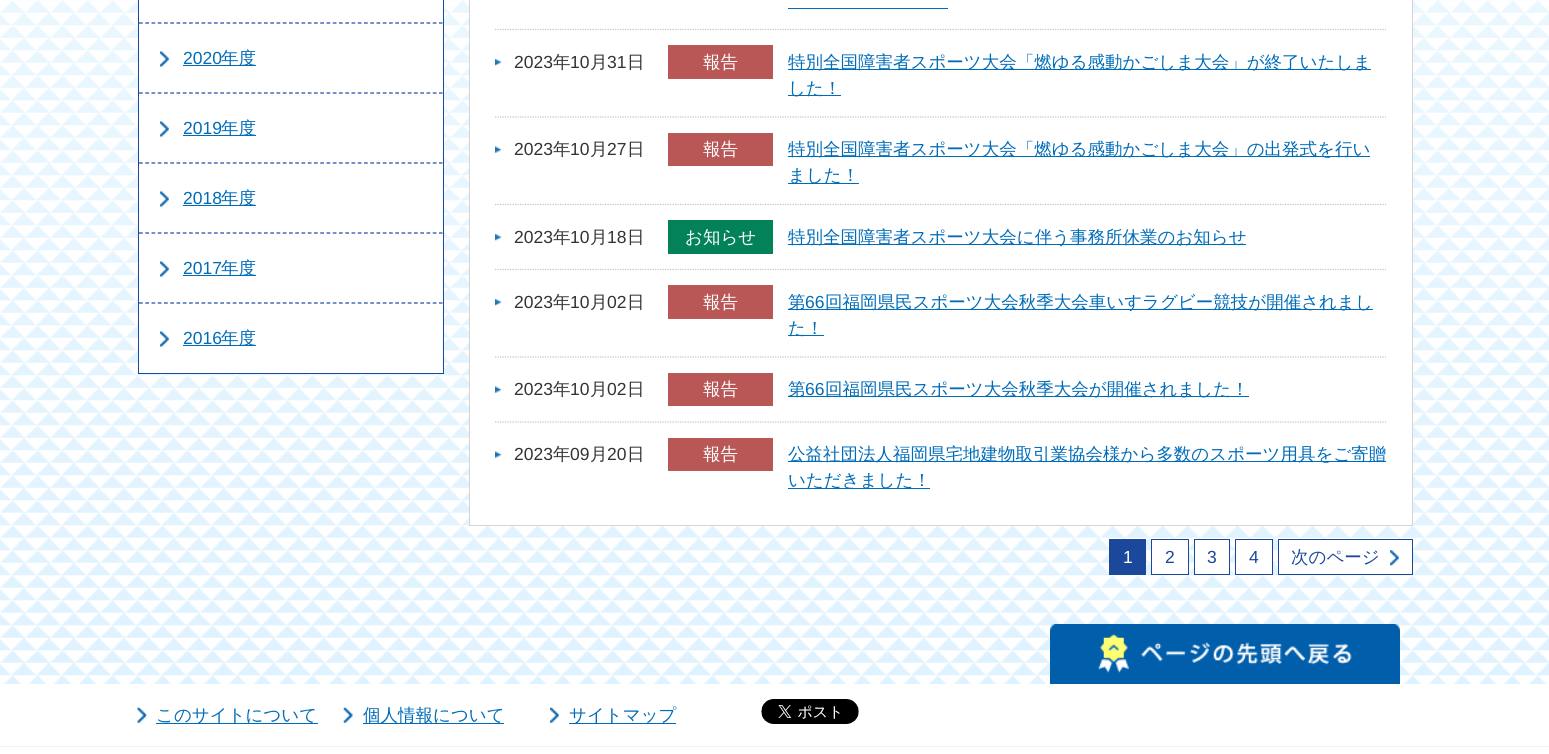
#include <cairo/cairo.h>
#include <math.h>
#include <stddef.h>

typedef struct { double x, y; const char *s; } line_t;
typedef struct { double x, y, w, h; unsigned color; } box_t;
static cairo_t *cr;

static void rgb(unsigned color)
{
	cairo_set_source_rgb(cr, (color >> 16) / 255.0, (color >> 8 & 255) / 255.0, (color & 255) / 255.0);
}

static void image(const char *path, double x, double y, double w, double h)
{
	cairo_surface_t *image = cairo_image_surface_create_from_png(path);
	cairo_save(cr);
	cairo_set_source_surface(cr, image, x, y);
	cairo_rectangle(cr, x, y, w, h);
	cairo_fill(cr);
	cairo_restore(cr);
	cairo_surface_destroy(image);
}

int main(void) {
	cairo_surface_t *surface = cairo_image_surface_create(CAIRO_FORMAT_RGB24, 1549, 754);
	cr = cairo_create(surface);
	cairo_font_options_t *options = cairo_font_options_create();
	cairo_font_options_set_hint_metrics(options, CAIRO_HINT_METRICS_OFF);
	cairo_font_options_set_hint_style(options, CAIRO_HINT_STYLE_NONE);
	cairo_set_font_options(cr, options);
	cairo_set_miter_limit(cr, 4);
	rgb(0xffffff);
	cairo_paint(cr);
	image("img/1.png", 0, 0, 1549, 684);
	{
		static const box_t items[] = {
			{443, 0, 1, 374, 0x1c489c},
			{138, 0, 1, 374, 0x1c489c},
			{139, 0, 304, 373, 0xffffff},
		};
		for (size_t i = 0; i < sizeof items / sizeof *items; i++) {
			rgb(items[i].color);
			cairo_rectangle(cr, items[i].x, items[i].y, items[i].w, items[i].h);
			cairo_fill(cr);
		}
	}
	cairo_new_path(cr);
	cairo_move_to(cr, 139, 23);
	cairo_line_to(cr, 442.5, 23);
	rgb(0x1c489c);
	cairo_set_line_width(cr, 1.2);
	cairo_set_dash(cr, (double[]){3.75, 2.5}, 2, 0);
	cairo_stroke(cr);
	image("img/2.png", 160, 51, 9, 16);
	cairo_new_path(cr);
	cairo_move_to(cr, 139, 93);
	cairo_line_to(cr, 442.5, 93);
	cairo_stroke(cr);
	rgb(0x006cb8);
	cairo_rectangle(cr, 183, 65, 73, 1);
	cairo_fill(cr);
	image("img/2.png", 160, 121, 9, 16);
	cairo_new_path(cr);
	cairo_move_to(cr, 139, 163);
	cairo_line_to(cr, 442.5, 163);
	rgb(0x1c489c);
	cairo_stroke(cr);
	rgb(0x006cb8);
	cairo_rectangle(cr, 183, 135, 73, 1);
	cairo_fill(cr);
	image("img/2.png", 160, 191, 9, 16);
	cairo_new_path(cr);
	cairo_move_to(cr, 139, 233);
	cairo_line_to(cr, 442.5, 233);
	rgb(0x1c489c);
	cairo_stroke(cr);
	rgb(0x006cb8);
	cairo_rectangle(cr, 183, 205, 73, 1);
	cairo_fill(cr);
	image("img/2.png", 160, 261, 9, 16);
	cairo_new_path(cr);
	cairo_move_to(cr, 139, 303);
	cairo_line_to(cr, 442.5, 303);
	rgb(0x1c489c);
	cairo_stroke(cr);
	rgb(0x006cb8);
	cairo_rectangle(cr, 183, 275, 73, 1);
	cairo_fill(cr);
	image("img/2.png", 160, 331, 9, 16);
	rgb(0x1c489c);
	cairo_rectangle(cr, 139, 373, 304, 1);
	cairo_fill(cr);
	rgb(0x006cb8);
	cairo_rectangle(cr, 183, 345, 73, 1);
	cairo_fill(cr);
	rgb(0xffffff);
	cairo_rectangle(cr, 469.5, -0.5, 943, 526);
	cairo_fill_preserve(cr);
	rgb(0xd4d4d4);
	cairo_set_line_width(cr, 1);
	cairo_set_dash(cr, NULL, 0, 0);
	cairo_stroke(cr);
	cairo_new_path(cr);
	cairo_move_to(cr, 495, 29.5);
	cairo_line_to(cr, 1386, 29.5);
	rgb(0xc2c2c2);
	cairo_set_line_width(cr, 1.2);
	cairo_set_dash(cr, (double[]){1.25, 1.25}, 2, 0);
	cairo_stroke(cr);
	rgb(0x006cb8);
	cairo_rectangle(cr, 788, 8, 160, 1);
	cairo_fill(cr);
	cairo_new_path(cr);
	cairo_move_to(cr, 495, 117);
	cairo_line_to(cr, 1386, 117);
	rgb(0xc2c2c2);
	cairo_stroke(cr);
	image("img/3.png", 495, 59, 7, 7);
	{
		static const box_t items[] = {
			{668, 45, 105, 34, 0xb95656},
			{788, 69, 583, 1, 0x006cb8},
			{788, 95, 53, 1, 0x006cb8},
		};
		for (size_t i = 0; i < sizeof items / sizeof *items; i++) {
			rgb(items[i].color);
			cairo_rectangle(cr, items[i].x, items[i].y, items[i].w, items[i].h);
			cairo_fill(cr);
		}
	}
	cairo_new_path(cr);
	cairo_move_to(cr, 495, 204.5);
	cairo_line_to(cr, 1386, 204.5);
	rgb(0xc2c2c2);
	cairo_stroke(cr);
	image("img/4.png", 495, 146, 7, 7);
	{
		static const box_t items[] = {
			{668, 133, 105, 33, 0xb95656},
			{788, 156, 582, 1, 0x006cb8},
			{788, 183, 71, 1, 0x006cb8},
		};
		for (size_t i = 0; i < sizeof items / sizeof *items; i++) {
			rgb(items[i].color);
			cairo_rectangle(cr, items[i].x, items[i].y, items[i].w, items[i].h);
			cairo_fill(cr);
		}
	}
	cairo_new_path(cr);
	cairo_move_to(cr, 495, 269.5);
	cairo_line_to(cr, 1386, 269.5);
	rgb(0xc2c2c2);
	cairo_stroke(cr);
	image("img/3.png", 495, 234, 7, 7);
	rgb(0x03825a);
	cairo_rectangle(cr, 668, 220, 105, 34);
	cairo_fill(cr);
	rgb(0x006cb8);
	cairo_rectangle(cr, 788, 244, 458, 1);
	cairo_fill(cr);
	cairo_new_path(cr);
	cairo_move_to(cr, 495, 357);
	cairo_line_to(cr, 1386, 357);
	rgb(0xc2c2c2);
	cairo_stroke(cr);
	image("img/3.png", 495, 299, 7, 7);
	{
		static const box_t items[] = {
			{668, 285, 105, 34, 0xb95656},
			{788, 309, 585, 1, 0x006cb8},
			{788, 335, 36, 1, 0x006cb8},
		};
		for (size_t i = 0; i < sizeof items / sizeof *items; i++) {
			rgb(items[i].color);
			cairo_rectangle(cr, items[i].x, items[i].y, items[i].w, items[i].h);
			cairo_fill(cr);
		}
	}
	cairo_new_path(cr);
	cairo_move_to(cr, 495, 422);
	cairo_line_to(cr, 1386, 422);
	rgb(0xc2c2c2);
	cairo_stroke(cr);
	image("img/4.png", 495, 386, 7, 7);
	rgb(0xb95656);
	cairo_rectangle(cr, 668, 373, 105, 33);
	cairo_fill(cr);
	rgb(0x006cb8);
	cairo_rectangle(cr, 788, 396, 461, 1);
	cairo_fill(cr);
	image("img/4.png", 495, 451, 7, 7);
	{
		static const box_t items[] = {
			{668, 438, 105, 33, 0xb95656},
			{788, 461, 598, 1, 0x006cb8},
			{788, 488, 142, 1, 0x006cb8},
			{1109, 539, 37, 36, 0x1c489c},
		};
		for (size_t i = 0; i < sizeof items / sizeof *items; i++) {
			rgb(items[i].color);
			cairo_rectangle(cr, items[i].x, items[i].y, items[i].w, items[i].h);
			cairo_fill(cr);
		}
	}
	rgb(0xffffff);
	cairo_rectangle(cr, 1151.5, 539.5, 37, 35);
	cairo_fill_preserve(cr);
	rgb(0x1c489c);
	cairo_set_line_width(cr, 1);
	cairo_set_dash(cr, NULL, 0, 0);
	cairo_stroke(cr);
	rgb(0xffffff);
	cairo_rectangle(cr, 1194.5, 539.5, 35, 35);
	cairo_fill_preserve(cr);
	rgb(0x1c489c);
	cairo_stroke(cr);
	rgb(0xffffff);
	cairo_rectangle(cr, 1235.5, 539.5, 37, 35);
	cairo_fill_preserve(cr);
	rgb(0x1c489c);
	cairo_stroke(cr);
	rgb(0xffffff);
	cairo_rectangle(cr, 1279, 540, 133, 34);
	cairo_fill(cr);
	image("img/5.png", 1390, 550, 9, 16);
	cairo_rectangle(cr, 1278.5, 539.5, 134, 35);
	rgb(0x1b479b);
	cairo_stroke(cr);
	image("img/6.png", 1050, 624, 350, 60);
	rgb(0xe4f5ff);
	cairo_rectangle(cr, 0, 746, 1549, 1);
	cairo_fill(cr);
	image("img/7.png", 137, 707, 10, 16);
	rgb(0x006cb8);
	cairo_rectangle(cr, 156, 723, 162, 1);
	cairo_fill(cr);
	image("img/8.png", 343, 707, 10, 16);
	cairo_rectangle(cr, 363, 723, 141, 1);
	cairo_fill(cr);
	image("img/9.png", 550, 707, 9, 16);
	cairo_rectangle(cr, 569, 723, 107, 1);
	cairo_fill(cr);
	image("img/10.png", 761, 699, 98, 25);
	cairo_select_font_face(cr, "Liberation Sans", CAIRO_FONT_SLANT_NORMAL, CAIRO_FONT_WEIGHT_NORMAL);
	cairo_set_font_size(cr, 17.5);
	cairo_move_to(cr, 183, 64);
	cairo_show_text(cr, "2020");
	cairo_select_font_face(cr, "WenQuanYi Zen Hei Medium", CAIRO_FONT_SLANT_NORMAL, CAIRO_FONT_WEIGHT_NORMAL);
	cairo_move_to(cr, 221, 64);
	cairo_show_text(cr, "年度");
	cairo_select_font_face(cr, "Liberation Sans", CAIRO_FONT_SLANT_NORMAL, CAIRO_FONT_WEIGHT_NORMAL);
	cairo_move_to(cr, 183, 134);
	cairo_show_text(cr, "2019");
	cairo_select_font_face(cr, "WenQuanYi Zen Hei Medium", CAIRO_FONT_SLANT_NORMAL, CAIRO_FONT_WEIGHT_NORMAL);
	cairo_move_to(cr, 221, 134);
	cairo_show_text(cr, "年度");
	cairo_select_font_face(cr, "Liberation Sans", CAIRO_FONT_SLANT_NORMAL, CAIRO_FONT_WEIGHT_NORMAL);
	cairo_move_to(cr, 183, 204);
	cairo_show_text(cr, "2018");
	cairo_select_font_face(cr, "WenQuanYi Zen Hei Medium", CAIRO_FONT_SLANT_NORMAL, CAIRO_FONT_WEIGHT_NORMAL);
	cairo_move_to(cr, 221, 204);
	cairo_show_text(cr, "年度");
	cairo_select_font_face(cr, "Liberation Sans", CAIRO_FONT_SLANT_NORMAL, CAIRO_FONT_WEIGHT_NORMAL);
	cairo_move_to(cr, 183, 274);
	cairo_show_text(cr, "2017");
	cairo_select_font_face(cr, "WenQuanYi Zen Hei Medium", CAIRO_FONT_SLANT_NORMAL, CAIRO_FONT_WEIGHT_NORMAL);
	cairo_move_to(cr, 221, 274);
	cairo_show_text(cr, "年度");
	cairo_select_font_face(cr, "Liberation Sans", CAIRO_FONT_SLANT_NORMAL, CAIRO_FONT_WEIGHT_NORMAL);
	cairo_move_to(cr, 183, 344);
	cairo_show_text(cr, "2016");
	cairo_select_font_face(cr, "WenQuanYi Zen Hei Medium", CAIRO_FONT_SLANT_NORMAL, CAIRO_FONT_WEIGHT_NORMAL);
	cairo_move_to(cr, 221, 344);
	cairo_show_text(cr, "年度");
	cairo_select_font_face(cr, "Liberation Sans", CAIRO_FONT_SLANT_NORMAL, CAIRO_FONT_WEIGHT_NORMAL);
	rgb(0x333333);
	cairo_move_to(cr, 514, 68);
	cairo_show_text(cr, "2023");
	cairo_select_font_face(cr, "WenQuanYi Zen Hei Medium", CAIRO_FONT_SLANT_NORMAL, CAIRO_FONT_WEIGHT_NORMAL);
	cairo_move_to(cr, 553, 68);
	cairo_show_text(cr, "年");
	cairo_select_font_face(cr, "Liberation Sans", CAIRO_FONT_SLANT_NORMAL, CAIRO_FONT_WEIGHT_NORMAL);
	cairo_move_to(cr, 570, 68);
	cairo_show_text(cr, "10");
	cairo_select_font_face(cr, "WenQuanYi Zen Hei Medium", CAIRO_FONT_SLANT_NORMAL, CAIRO_FONT_WEIGHT_NORMAL);
	cairo_move_to(cr, 590, 68);
	cairo_show_text(cr, "月");
	cairo_select_font_face(cr, "Liberation Sans", CAIRO_FONT_SLANT_NORMAL, CAIRO_FONT_WEIGHT_NORMAL);
	cairo_move_to(cr, 607, 68);
	cairo_show_text(cr, "31");
	cairo_select_font_face(cr, "WenQuanYi Zen Hei Medium", CAIRO_FONT_SLANT_NORMAL, CAIRO_FONT_WEIGHT_NORMAL);
	cairo_move_to(cr, 627, 68);
	cairo_show_text(cr, "日");
	rgb(0xffffff);
	cairo_move_to(cr, 703, 68);
	cairo_show_text(cr, "報告");
	rgb(0x006cb8);
	cairo_move_to(cr, 788, 68);
	cairo_show_text(cr, "特別全国障害者スポーツ大会「燃ゆる感動かごしま大会」が終了いたしま");
	cairo_move_to(cr, 788, 94);
	cairo_show_text(cr, "した！");
	cairo_select_font_face(cr, "Liberation Sans", CAIRO_FONT_SLANT_NORMAL, CAIRO_FONT_WEIGHT_NORMAL);
	rgb(0x333333);
	cairo_move_to(cr, 514, 155);
	cairo_show_text(cr, "2023");
	cairo_select_font_face(cr, "WenQuanYi Zen Hei Medium", CAIRO_FONT_SLANT_NORMAL, CAIRO_FONT_WEIGHT_NORMAL);
	cairo_move_to(cr, 553, 155);
	cairo_show_text(cr, "年");
	cairo_select_font_face(cr, "Liberation Sans", CAIRO_FONT_SLANT_NORMAL, CAIRO_FONT_WEIGHT_NORMAL);
	cairo_move_to(cr, 570, 155);
	cairo_show_text(cr, "10");
	cairo_select_font_face(cr, "WenQuanYi Zen Hei Medium", CAIRO_FONT_SLANT_NORMAL, CAIRO_FONT_WEIGHT_NORMAL);
	cairo_move_to(cr, 590, 155);
	cairo_show_text(cr, "月");
	cairo_select_font_face(cr, "Liberation Sans", CAIRO_FONT_SLANT_NORMAL, CAIRO_FONT_WEIGHT_NORMAL);
	cairo_move_to(cr, 607, 155);
	cairo_show_text(cr, "27");
	cairo_select_font_face(cr, "WenQuanYi Zen Hei Medium", CAIRO_FONT_SLANT_NORMAL, CAIRO_FONT_WEIGHT_NORMAL);
	cairo_move_to(cr, 627, 155);
	cairo_show_text(cr, "日");
	rgb(0xffffff);
	cairo_move_to(cr, 703, 155);
	cairo_show_text(cr, "報告");
	rgb(0x006cb8);
	cairo_move_to(cr, 788, 155);
	cairo_show_text(cr, "特別全国障害者スポーツ大会「燃ゆる感動かごしま大会」の出発式を行い");
	cairo_move_to(cr, 788, 181);
	cairo_show_text(cr, "ました！");
	cairo_select_font_face(cr, "Liberation Sans", CAIRO_FONT_SLANT_NORMAL, CAIRO_FONT_WEIGHT_NORMAL);
	rgb(0x333333);
	cairo_move_to(cr, 514, 243);
	cairo_show_text(cr, "2023");
	cairo_select_font_face(cr, "WenQuanYi Zen Hei Medium", CAIRO_FONT_SLANT_NORMAL, CAIRO_FONT_WEIGHT_NORMAL);
	cairo_move_to(cr, 553, 243);
	cairo_show_text(cr, "年");
	cairo_select_font_face(cr, "Liberation Sans", CAIRO_FONT_SLANT_NORMAL, CAIRO_FONT_WEIGHT_NORMAL);
	cairo_move_to(cr, 570, 243);
	cairo_show_text(cr, "10");
	cairo_select_font_face(cr, "WenQuanYi Zen Hei Medium", CAIRO_FONT_SLANT_NORMAL, CAIRO_FONT_WEIGHT_NORMAL);
	cairo_move_to(cr, 590, 243);
	cairo_show_text(cr, "月");
	cairo_select_font_face(cr, "Liberation Sans", CAIRO_FONT_SLANT_NORMAL, CAIRO_FONT_WEIGHT_NORMAL);
	cairo_move_to(cr, 607, 243);
	cairo_show_text(cr, "18");
	cairo_select_font_face(cr, "WenQuanYi Zen Hei Medium", CAIRO_FONT_SLANT_NORMAL, CAIRO_FONT_WEIGHT_NORMAL);
	cairo_move_to(cr, 627, 243);
	cairo_show_text(cr, "日");
	rgb(0xffffff);
	cairo_move_to(cr, 685, 243);
	cairo_show_text(cr, "お知らせ");
	rgb(0x006cb8);
	cairo_move_to(cr, 788, 243);
	cairo_show_text(cr, "特別全国障害者スポーツ大会に伴う事務所休業のお知らせ");
	cairo_select_font_face(cr, "Liberation Sans", CAIRO_FONT_SLANT_NORMAL, CAIRO_FONT_WEIGHT_NORMAL);
	rgb(0x333333);
	cairo_move_to(cr, 514, 308);
	cairo_show_text(cr, "2023");
	cairo_select_font_face(cr, "WenQuanYi Zen Hei Medium", CAIRO_FONT_SLANT_NORMAL, CAIRO_FONT_WEIGHT_NORMAL);
	cairo_move_to(cr, 553, 308);
	cairo_show_text(cr, "年");
	cairo_select_font_face(cr, "Liberation Sans", CAIRO_FONT_SLANT_NORMAL, CAIRO_FONT_WEIGHT_NORMAL);
	cairo_move_to(cr, 570, 308);
	cairo_show_text(cr, "10");
	cairo_select_font_face(cr, "WenQuanYi Zen Hei Medium", CAIRO_FONT_SLANT_NORMAL, CAIRO_FONT_WEIGHT_NORMAL);
	cairo_move_to(cr, 590, 308);
	cairo_show_text(cr, "月");
	cairo_select_font_face(cr, "Liberation Sans", CAIRO_FONT_SLANT_NORMAL, CAIRO_FONT_WEIGHT_NORMAL);
	cairo_move_to(cr, 607, 308);
	cairo_show_text(cr, "02");
	cairo_select_font_face(cr, "WenQuanYi Zen Hei Medium", CAIRO_FONT_SLANT_NORMAL, CAIRO_FONT_WEIGHT_NORMAL);
	cairo_move_to(cr, 627, 308);
	cairo_show_text(cr, "日");
	rgb(0xffffff);
	cairo_move_to(cr, 703, 308);
	cairo_show_text(cr, "報告");
	rgb(0x006cb8);
	cairo_move_to(cr, 788, 308);
	cairo_show_text(cr, "第");
	cairo_select_font_face(cr, "Liberation Sans", CAIRO_FONT_SLANT_NORMAL, CAIRO_FONT_WEIGHT_NORMAL);
	cairo_move_to(cr, 805, 308);
	cairo_show_text(cr, "66");
	cairo_select_font_face(cr, "WenQuanYi Zen Hei Medium", CAIRO_FONT_SLANT_NORMAL, CAIRO_FONT_WEIGHT_NORMAL);
	cairo_move_to(cr, 825, 308);
	cairo_show_text(cr, "回福岡県民スポーツ大会秋季大会車いすラグビー競技が開催されまし");
	cairo_move_to(cr, 788, 334);
	cairo_show_text(cr, "た！");
	cairo_select_font_face(cr, "Liberation Sans", CAIRO_FONT_SLANT_NORMAL, CAIRO_FONT_WEIGHT_NORMAL);
	rgb(0x333333);
	cairo_move_to(cr, 514, 395);
	cairo_show_text(cr, "2023");
	cairo_select_font_face(cr, "WenQuanYi Zen Hei Medium", CAIRO_FONT_SLANT_NORMAL, CAIRO_FONT_WEIGHT_NORMAL);
	cairo_move_to(cr, 553, 395);
	cairo_show_text(cr, "年");
	cairo_select_font_face(cr, "Liberation Sans", CAIRO_FONT_SLANT_NORMAL, CAIRO_FONT_WEIGHT_NORMAL);
	cairo_move_to(cr, 570, 395);
	cairo_show_text(cr, "10");
	cairo_select_font_face(cr, "WenQuanYi Zen Hei Medium", CAIRO_FONT_SLANT_NORMAL, CAIRO_FONT_WEIGHT_NORMAL);
	cairo_move_to(cr, 590, 395);
	cairo_show_text(cr, "月");
	cairo_select_font_face(cr, "Liberation Sans", CAIRO_FONT_SLANT_NORMAL, CAIRO_FONT_WEIGHT_NORMAL);
	cairo_move_to(cr, 607, 395);
	cairo_show_text(cr, "02");
	cairo_select_font_face(cr, "WenQuanYi Zen Hei Medium", CAIRO_FONT_SLANT_NORMAL, CAIRO_FONT_WEIGHT_NORMAL);
	cairo_move_to(cr, 627, 395);
	cairo_show_text(cr, "日");
	rgb(0xffffff);
	cairo_move_to(cr, 703, 395);
	cairo_show_text(cr, "報告");
	rgb(0x006cb8);
	cairo_move_to(cr, 788, 395);
	cairo_show_text(cr, "第");
	cairo_select_font_face(cr, "Liberation Sans", CAIRO_FONT_SLANT_NORMAL, CAIRO_FONT_WEIGHT_NORMAL);
	cairo_move_to(cr, 805, 395);
	cairo_show_text(cr, "66");
	cairo_select_font_face(cr, "WenQuanYi Zen Hei Medium", CAIRO_FONT_SLANT_NORMAL, CAIRO_FONT_WEIGHT_NORMAL);
	cairo_move_to(cr, 825, 395);
	cairo_show_text(cr, "回福岡県民スポーツ大会秋季大会が開催されました！");
	cairo_select_font_face(cr, "Liberation Sans", CAIRO_FONT_SLANT_NORMAL, CAIRO_FONT_WEIGHT_NORMAL);
	rgb(0x333333);
	cairo_move_to(cr, 514, 460);
	cairo_show_text(cr, "2023");
	cairo_select_font_face(cr, "WenQuanYi Zen Hei Medium", CAIRO_FONT_SLANT_NORMAL, CAIRO_FONT_WEIGHT_NORMAL);
	cairo_move_to(cr, 553, 460);
	cairo_show_text(cr, "年");
	cairo_select_font_face(cr, "Liberation Sans", CAIRO_FONT_SLANT_NORMAL, CAIRO_FONT_WEIGHT_NORMAL);
	cairo_move_to(cr, 570, 460);
	cairo_show_text(cr, "09");
	cairo_select_font_face(cr, "WenQuanYi Zen Hei Medium", CAIRO_FONT_SLANT_NORMAL, CAIRO_FONT_WEIGHT_NORMAL);
	cairo_move_to(cr, 590, 460);
	cairo_show_text(cr, "月");
	cairo_select_font_face(cr, "Liberation Sans", CAIRO_FONT_SLANT_NORMAL, CAIRO_FONT_WEIGHT_NORMAL);
	cairo_move_to(cr, 607, 460);
	cairo_show_text(cr, "20");
	cairo_select_font_face(cr, "WenQuanYi Zen Hei Medium", CAIRO_FONT_SLANT_NORMAL, CAIRO_FONT_WEIGHT_NORMAL);
	cairo_move_to(cr, 627, 460);
	cairo_show_text(cr, "日");
	rgb(0xffffff);
	cairo_move_to(cr, 703, 460);
	cairo_show_text(cr, "報告");
	rgb(0x006cb8);
	cairo_move_to(cr, 788, 460);
	cairo_show_text(cr, "公益社団法人福岡県宅地建物取引業協会様から多数のスポーツ用具をご寄贈");
	cairo_move_to(cr, 788, 486);
	cairo_show_text(cr, "いただきました！");
	cairo_select_font_face(cr, "Liberation Sans", CAIRO_FONT_SLANT_NORMAL, CAIRO_FONT_WEIGHT_NORMAL);
	rgb(0xffffff);
	cairo_move_to(cr, 1123, 563);
	cairo_show_text(cr, "1");
	rgb(0x1b479b);
	{
		static const line_t items[] = {
			{1165, 563, "2"},
			{1207, 563, "3"},
			{1249, 563, "4"},
		};
		for (size_t i = 0; i < sizeof items / sizeof *items; i++) {
			cairo_move_to(cr, items[i].x, items[i].y);
			cairo_show_text(cr, items[i].s);
		}
	}
	cairo_select_font_face(cr, "WenQuanYi Zen Hei Medium", CAIRO_FONT_SLANT_NORMAL, CAIRO_FONT_WEIGHT_NORMAL);
	cairo_move_to(cr, 1291, 563);
	cairo_show_text(cr, "次のページ");
	rgb(0x006cb8);
	{
		static const line_t items[] = {
			{156, 721, "このサイトについて"},
			{363, 721, "個人情報について"},
			{569, 721, "サイトマップ"},
		};
		for (size_t i = 0; i < sizeof items / sizeof *items; i++) {
			cairo_move_to(cr, items[i].x, items[i].y);
			cairo_show_text(cr, items[i].s);
		}
	}
	cairo_surface_write_to_png(surface, "page.png");
	cairo_font_options_destroy(options);
	cairo_destroy(cr);
	cairo_surface_destroy(surface);
	return 0;
}
